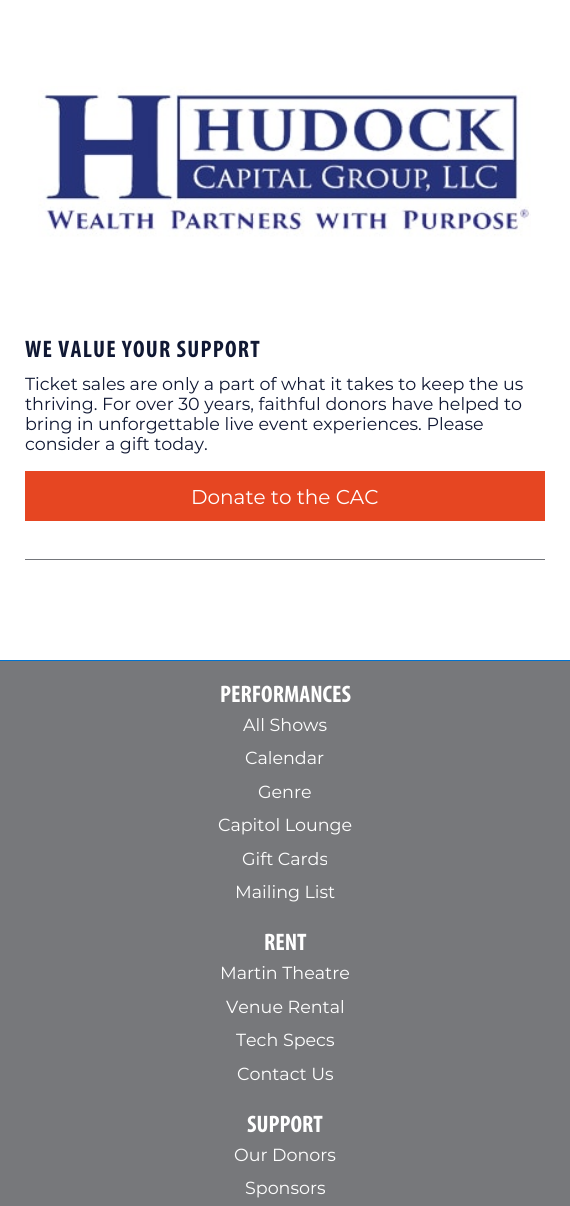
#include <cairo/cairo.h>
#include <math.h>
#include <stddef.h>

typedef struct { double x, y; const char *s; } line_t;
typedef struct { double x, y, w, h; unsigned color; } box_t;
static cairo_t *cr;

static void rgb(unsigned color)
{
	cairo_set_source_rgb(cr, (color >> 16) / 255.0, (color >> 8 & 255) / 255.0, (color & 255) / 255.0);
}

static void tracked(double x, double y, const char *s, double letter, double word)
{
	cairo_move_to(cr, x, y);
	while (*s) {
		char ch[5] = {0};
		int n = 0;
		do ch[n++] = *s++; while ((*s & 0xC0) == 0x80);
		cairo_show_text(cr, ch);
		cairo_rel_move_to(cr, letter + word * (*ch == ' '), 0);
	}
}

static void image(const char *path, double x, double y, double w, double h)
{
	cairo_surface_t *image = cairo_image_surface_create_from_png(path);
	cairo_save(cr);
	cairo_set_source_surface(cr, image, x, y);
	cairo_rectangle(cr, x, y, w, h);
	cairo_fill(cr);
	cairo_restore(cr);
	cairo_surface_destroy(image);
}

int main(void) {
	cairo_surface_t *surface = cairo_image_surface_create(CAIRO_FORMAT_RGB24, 570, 1206);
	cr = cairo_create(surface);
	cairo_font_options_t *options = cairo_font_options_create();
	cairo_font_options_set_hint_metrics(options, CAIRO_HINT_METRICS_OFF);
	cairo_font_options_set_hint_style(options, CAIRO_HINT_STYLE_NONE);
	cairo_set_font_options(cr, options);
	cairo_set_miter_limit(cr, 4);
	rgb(0xffffff);
	cairo_paint(cr);
	image("img/1.png", 38, 86, 493, 151);
	{
		static const box_t items[] = {
			{25, 559, 520, 1, 0x74767b},
			{25, 471, 520, 50, 0xe64622},
			{0, 661, 570, 545, 0x77787b},
			{0, 660, 570, 1, 0x0072ce},
		};
		for (size_t i = 0; i < sizeof items / sizeof *items; i++) {
			rgb(items[i].color);
			cairo_rectangle(cr, items[i].x, items[i].y, items[i].w, items[i].h);
			cairo_fill(cr);
		}
	}
	cairo_select_font_face(cr, "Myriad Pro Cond", CAIRO_FONT_SLANT_NORMAL, CAIRO_FONT_WEIGHT_BOLD);
	cairo_set_font_size(cr, 24);
	rgb(0x101833);
	tracked(25, 357, "WE VALUE YOUR SUPPORT", 1.25, 0);
	cairo_select_font_face(cr, "Montserrat", CAIRO_FONT_SLANT_NORMAL, CAIRO_FONT_WEIGHT_NORMAL);
	cairo_set_font_size(cr, 17.5);
	{
		static const line_t items[] = {
			{25, 390, "Ticket sales are only a part of what it takes to keep the us"},
			{25, 410, "thriving. For over 30 years, faithful donors have helped to"},
			{25, 430, "bring in unforgettable live event experiences. Please"},
			{25, 450, "consider a gift today."},
		};
		for (size_t i = 0; i < sizeof items / sizeof *items; i++) {
			cairo_move_to(cr, items[i].x, items[i].y);
			cairo_show_text(cr, items[i].s);
		}
	}
	cairo_set_font_size(cr, 20);
	rgb(0xffffff);
	cairo_move_to(cr, 191, 504);
	cairo_show_text(cr, "Donate to the CAC");
	cairo_select_font_face(cr, "Myriad Pro Cond", CAIRO_FONT_SLANT_NORMAL, CAIRO_FONT_WEIGHT_BOLD);
	cairo_set_font_size(cr, 24);
	cairo_move_to(cr, 220, 702);
	cairo_show_text(cr, "PERFORMANCES");
	cairo_select_font_face(cr, "Montserrat", CAIRO_FONT_SLANT_NORMAL, CAIRO_FONT_WEIGHT_NORMAL);
	cairo_set_font_size(cr, 17.5);
	{
		static const line_t items[] = {
			{243, 731, "All Shows"},
			{245, 764, "Calendar"},
			{258, 798, "Genre"},
			{218, 831, "Capitol Lounge"},
			{242, 865, "Gift Cards"},
			{235, 898, "Mailing List"},
		};
		for (size_t i = 0; i < sizeof items / sizeof *items; i++) {
			cairo_move_to(cr, items[i].x, items[i].y);
			cairo_show_text(cr, items[i].s);
		}
	}
	cairo_select_font_face(cr, "Myriad Pro Cond", CAIRO_FONT_SLANT_NORMAL, CAIRO_FONT_WEIGHT_BOLD);
	cairo_set_font_size(cr, 24);
	cairo_move_to(cr, 264, 950);
	cairo_show_text(cr, "RENT");
	cairo_select_font_face(cr, "Montserrat", CAIRO_FONT_SLANT_NORMAL, CAIRO_FONT_WEIGHT_NORMAL);
	cairo_set_font_size(cr, 17.5);
	{
		static const line_t items[] = {
			{220, 979, "Martin Theatre"},
			{226, 1013, "Venue Rental"},
			{236, 1046, "Tech Specs"},
			{237, 1080, "Contact Us"},
		};
		for (size_t i = 0; i < sizeof items / sizeof *items; i++) {
			cairo_move_to(cr, items[i].x, items[i].y);
			cairo_show_text(cr, items[i].s);
		}
	}
	cairo_select_font_face(cr, "Myriad Pro Cond", CAIRO_FONT_SLANT_NORMAL, CAIRO_FONT_WEIGHT_BOLD);
	cairo_set_font_size(cr, 24);
	cairo_move_to(cr, 247, 1132);
	cairo_show_text(cr, "SUPPORT");
	cairo_select_font_face(cr, "Montserrat", CAIRO_FONT_SLANT_NORMAL, CAIRO_FONT_WEIGHT_NORMAL);
	cairo_set_font_size(cr, 17.5);
	cairo_move_to(cr, 234, 1161);
	cairo_show_text(cr, "Our Donors");
	cairo_move_to(cr, 245, 1194);
	cairo_show_text(cr, "Sponsors");
	cairo_surface_write_to_png(surface, "page.png");
	cairo_font_options_destroy(options);
	cairo_destroy(cr);
	cairo_surface_destroy(surface);
	return 0;
}
